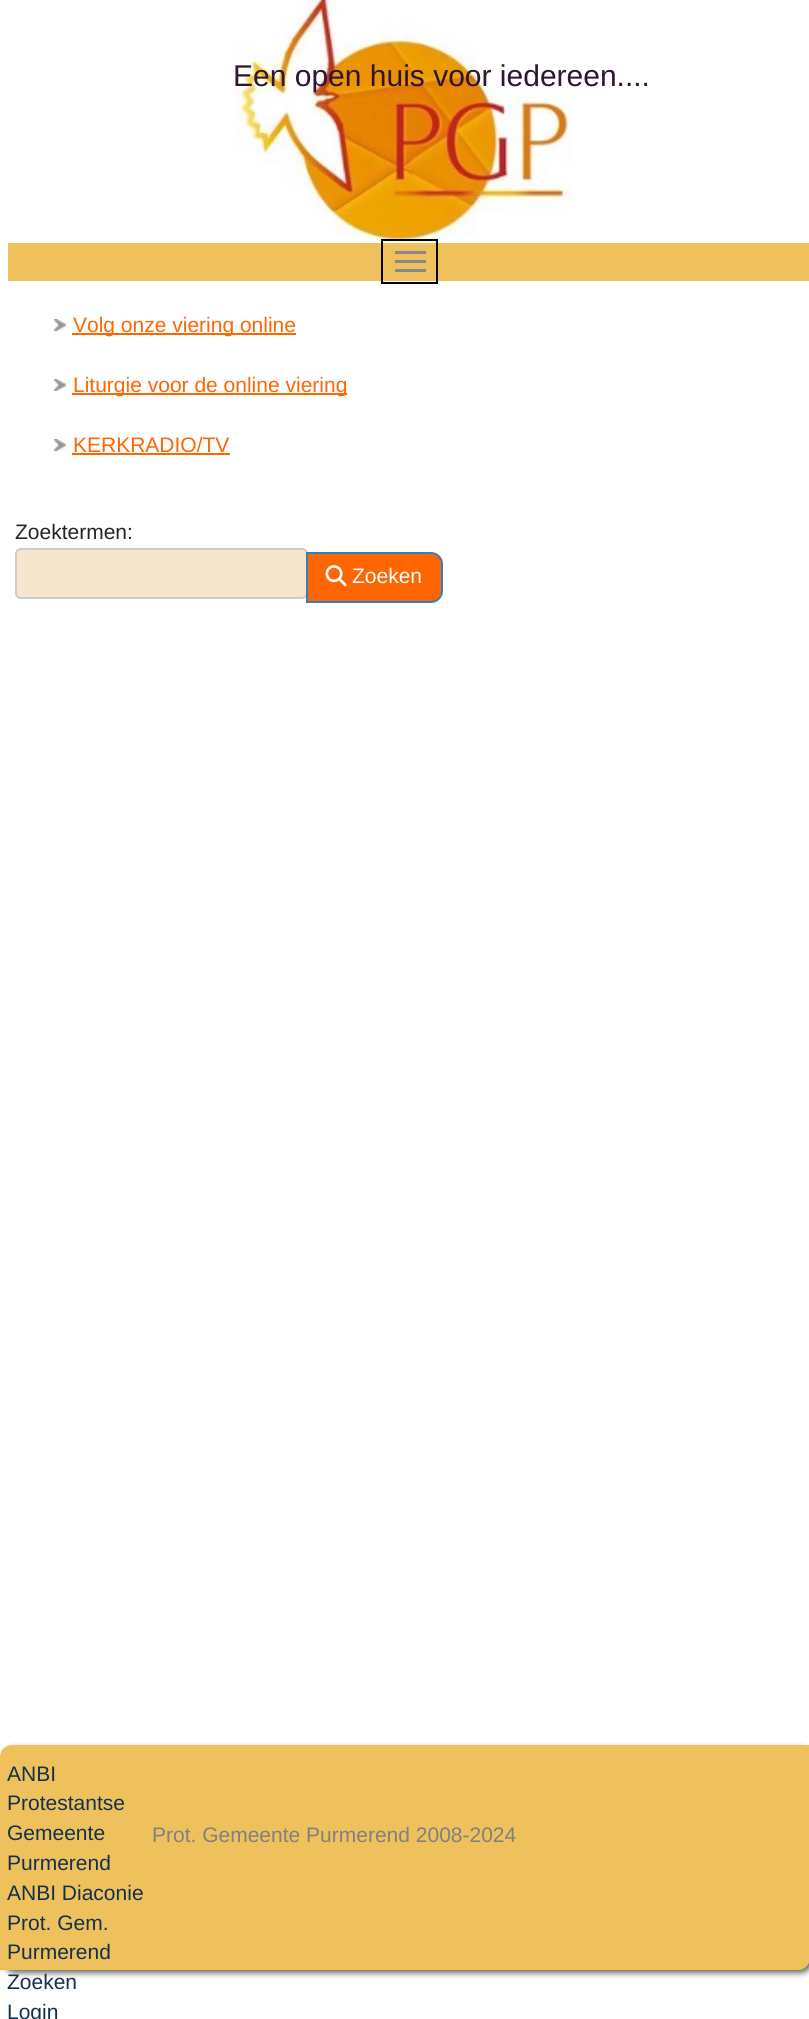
#include <cairo/cairo.h>
#include <math.h>
#include <stddef.h>

typedef struct { double x, y; const char *s; } line_t;
typedef struct { double x, y, w, h; unsigned color; } box_t;
static cairo_t *cr;

static void rgb(unsigned color)
{
	cairo_set_source_rgb(cr, (color >> 16) / 255.0, (color >> 8 & 255) / 255.0, (color & 255) / 255.0);
}

static void rrect(double x, double y, double w, double h, double r)
{
	cairo_new_sub_path(cr);
	cairo_arc(cr, x + w - r, y + h - r, r, 0, M_PI / 2);
	cairo_arc(cr, x + r, y + h - r, r, M_PI / 2, M_PI);
	cairo_arc(cr, x + r, y + r, r, M_PI, 1.5 * M_PI);
	cairo_arc(cr, x + w - r, y + r, r, 1.5 * M_PI, 2 * M_PI);
	cairo_close_path(cr);
}

static void soft_shadow(double x, double y, double w, double h, double r, double blur, double alpha)
{
	cairo_push_group_with_content(cr, CAIRO_CONTENT_ALPHA);
	cairo_set_operator(cr, CAIRO_OPERATOR_SOURCE);
	for (int i = 15; i >= -15 && fmin(w, h) + blur * i / 3 > 0; i -= 2) {
		double e = blur * i / 6;
		cairo_set_source_rgba(cr, 0, 0, 0, alpha * erfc((i - 1) / 8.5) / 2);
		rrect(x - e, y - e, w + 2 * e, h + 2 * e, fmax(0, fmin(r + e + blur * .6, fmin(w, h) / 2 + e)));
		cairo_fill(cr);
	}
	cairo_pattern_t *soft = cairo_pop_group(cr);
	cairo_mask(cr, soft);
	cairo_pattern_destroy(soft);
}

static void image(const char *path, double x, double y, double w, double h)
{
	cairo_surface_t *image = cairo_image_surface_create_from_png(path);
	cairo_save(cr);
	cairo_set_source_surface(cr, image, x, y);
	cairo_rectangle(cr, x, y, w, h);
	cairo_fill(cr);
	cairo_restore(cr);
	cairo_surface_destroy(image);
}

int main(void) {
	cairo_surface_t *surface = cairo_image_surface_create(CAIRO_FORMAT_RGB24, 809, 2019);
	cr = cairo_create(surface);
	cairo_font_options_t *options = cairo_font_options_create();
	cairo_font_options_set_hint_metrics(options, CAIRO_HINT_METRICS_OFF);
	cairo_font_options_set_hint_style(options, CAIRO_HINT_STYLE_NONE);
	cairo_set_font_options(cr, options);
	cairo_set_miter_limit(cr, 4);
	rgb(0xffffff);
	cairo_paint(cr);
	image("img/1.png", 235, 0, 338, 243);
	rgb(0xefc15d);
	cairo_rectangle(cr, 8, 243, 801, 38);
	cairo_fill(cr);
	cairo_rectangle(cr, 382, 240, 55, 43);
	rgb(0x000000);
	cairo_stroke(cr);
	{
		static const box_t items[] = {
			{395, 251, 31, 3, 0x888888},
			{395, 260, 31, 3, 0x888888},
			{395, 269, 31, 3, 0x888888},
		};
		for (size_t i = 0; i < sizeof items / sizeof *items; i++) {
			rgb(items[i].color);
			cairo_rectangle(cr, items[i].x, items[i].y, items[i].w, items[i].h);
			cairo_fill(cr);
		}
	}
	image("img/2.png", 54, 319, 12, 12);
	rgb(0xff6501);
	cairo_rectangle(cr, 72, 333, 224, 2);
	cairo_fill(cr);
	image("img/2.png", 54, 379, 12, 12);
	cairo_rectangle(cr, 72, 393, 275, 2);
	cairo_fill(cr);
	image("img/2.png", 54, 439, 12, 12);
	cairo_rectangle(cr, 72, 453, 158, 2);
	cairo_fill(cr);
	rgb(0xf7e6ce);
	rrect(16, 549, 291, 49, 5);
	cairo_fill_preserve(cr);
	rgb(0xcccccc);
	cairo_stroke(cr);
	rgb(0xff6501);
	cairo_new_path(cr);
	cairo_move_to(cr, 307, 553);
	cairo_line_to(cr, 431, 553);
	cairo_curve_to(cr, 437, 553, 442, 558, 442, 564);
	cairo_line_to(cr, 442, 591);
	cairo_curve_to(cr, 442, 597, 437, 602, 431, 602);
	cairo_line_to(cr, 307, 602);
	cairo_close_path(cr);
	cairo_fill_preserve(cr);
	rgb(0x357ebd);
	cairo_stroke(cr);
	image("img/3.png", 325, 565, 22, 22);
	rgb(0x000000);
	soft_shadow(3, 1748, 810, 225, 12, 3, 0.59);
	rgb(0xefc15d);
	cairo_new_path(cr);
	cairo_move_to(cr, 12, 1745);
	cairo_line_to(cr, 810, 1745);
	cairo_line_to(cr, 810, 1958);
	cairo_curve_to(cr, 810, 1964.5, 804.5, 1970, 798, 1970);
	cairo_line_to(cr, 0, 1970);
	cairo_line_to(cr, 0, 1757);
	cairo_curve_to(cr, 0, 1750.5, 5.5, 1745, 12, 1745);
	cairo_close_path(cr);
	cairo_fill(cr);
	cairo_select_font_face(cr, "Liberation Sans", CAIRO_FONT_SLANT_NORMAL, CAIRO_FONT_WEIGHT_NORMAL);
	cairo_set_font_size(cr, 30);
	rgb(0x2e1532);
	cairo_move_to(cr, 233, 86);
	cairo_show_text(cr, "Een open huis voor iedereen....");
	cairo_set_font_size(cr, 21);
	rgb(0xff6501);
	{
		static const line_t items[] = {
			{73, 332, "Volg onze viering online"},
			{73, 392, "Liturgie voor de online viering"},
			{73, 452, "KERKRADIO/TV"},
		};
		for (size_t i = 0; i < sizeof items / sizeof *items; i++) {
			cairo_move_to(cr, items[i].x, items[i].y);
			cairo_show_text(cr, items[i].s);
		}
	}
	rgb(0x212529);
	cairo_move_to(cr, 15, 539);
	cairo_show_text(cr, "Zoektermen:");
	rgb(0xffffff);
	cairo_move_to(cr, 352, 583);
	cairo_show_text(cr, "Zoeken");
	rgb(0x13314b);
	{
		static const line_t items[] = {
			{7, 1781, "ANBI"},
			{7, 1810, "Protestantse"},
			{7, 1840, "Gemeente"},
			{7, 1870, "Purmerend"},
			{7, 1900, "ANBI Diaconie"},
			{7, 1930, "Prot. Gem."},
			{7, 1959, "Purmerend"},
			{7, 1989, "Zoeken"},
			{7, 2019, "Login"},
		};
		for (size_t i = 0; i < sizeof items / sizeof *items; i++) {
			cairo_move_to(cr, items[i].x, items[i].y);
			cairo_show_text(cr, items[i].s);
		}
	}
	rgb(0x808080);
	cairo_move_to(cr, 152, 1842);
	cairo_show_text(cr, "Prot. Gemeente Purmerend 2008-2024");
	cairo_surface_write_to_png(surface, "page.png");
	cairo_font_options_destroy(options);
	cairo_destroy(cr);
	cairo_surface_destroy(surface);
	return 0;
}
